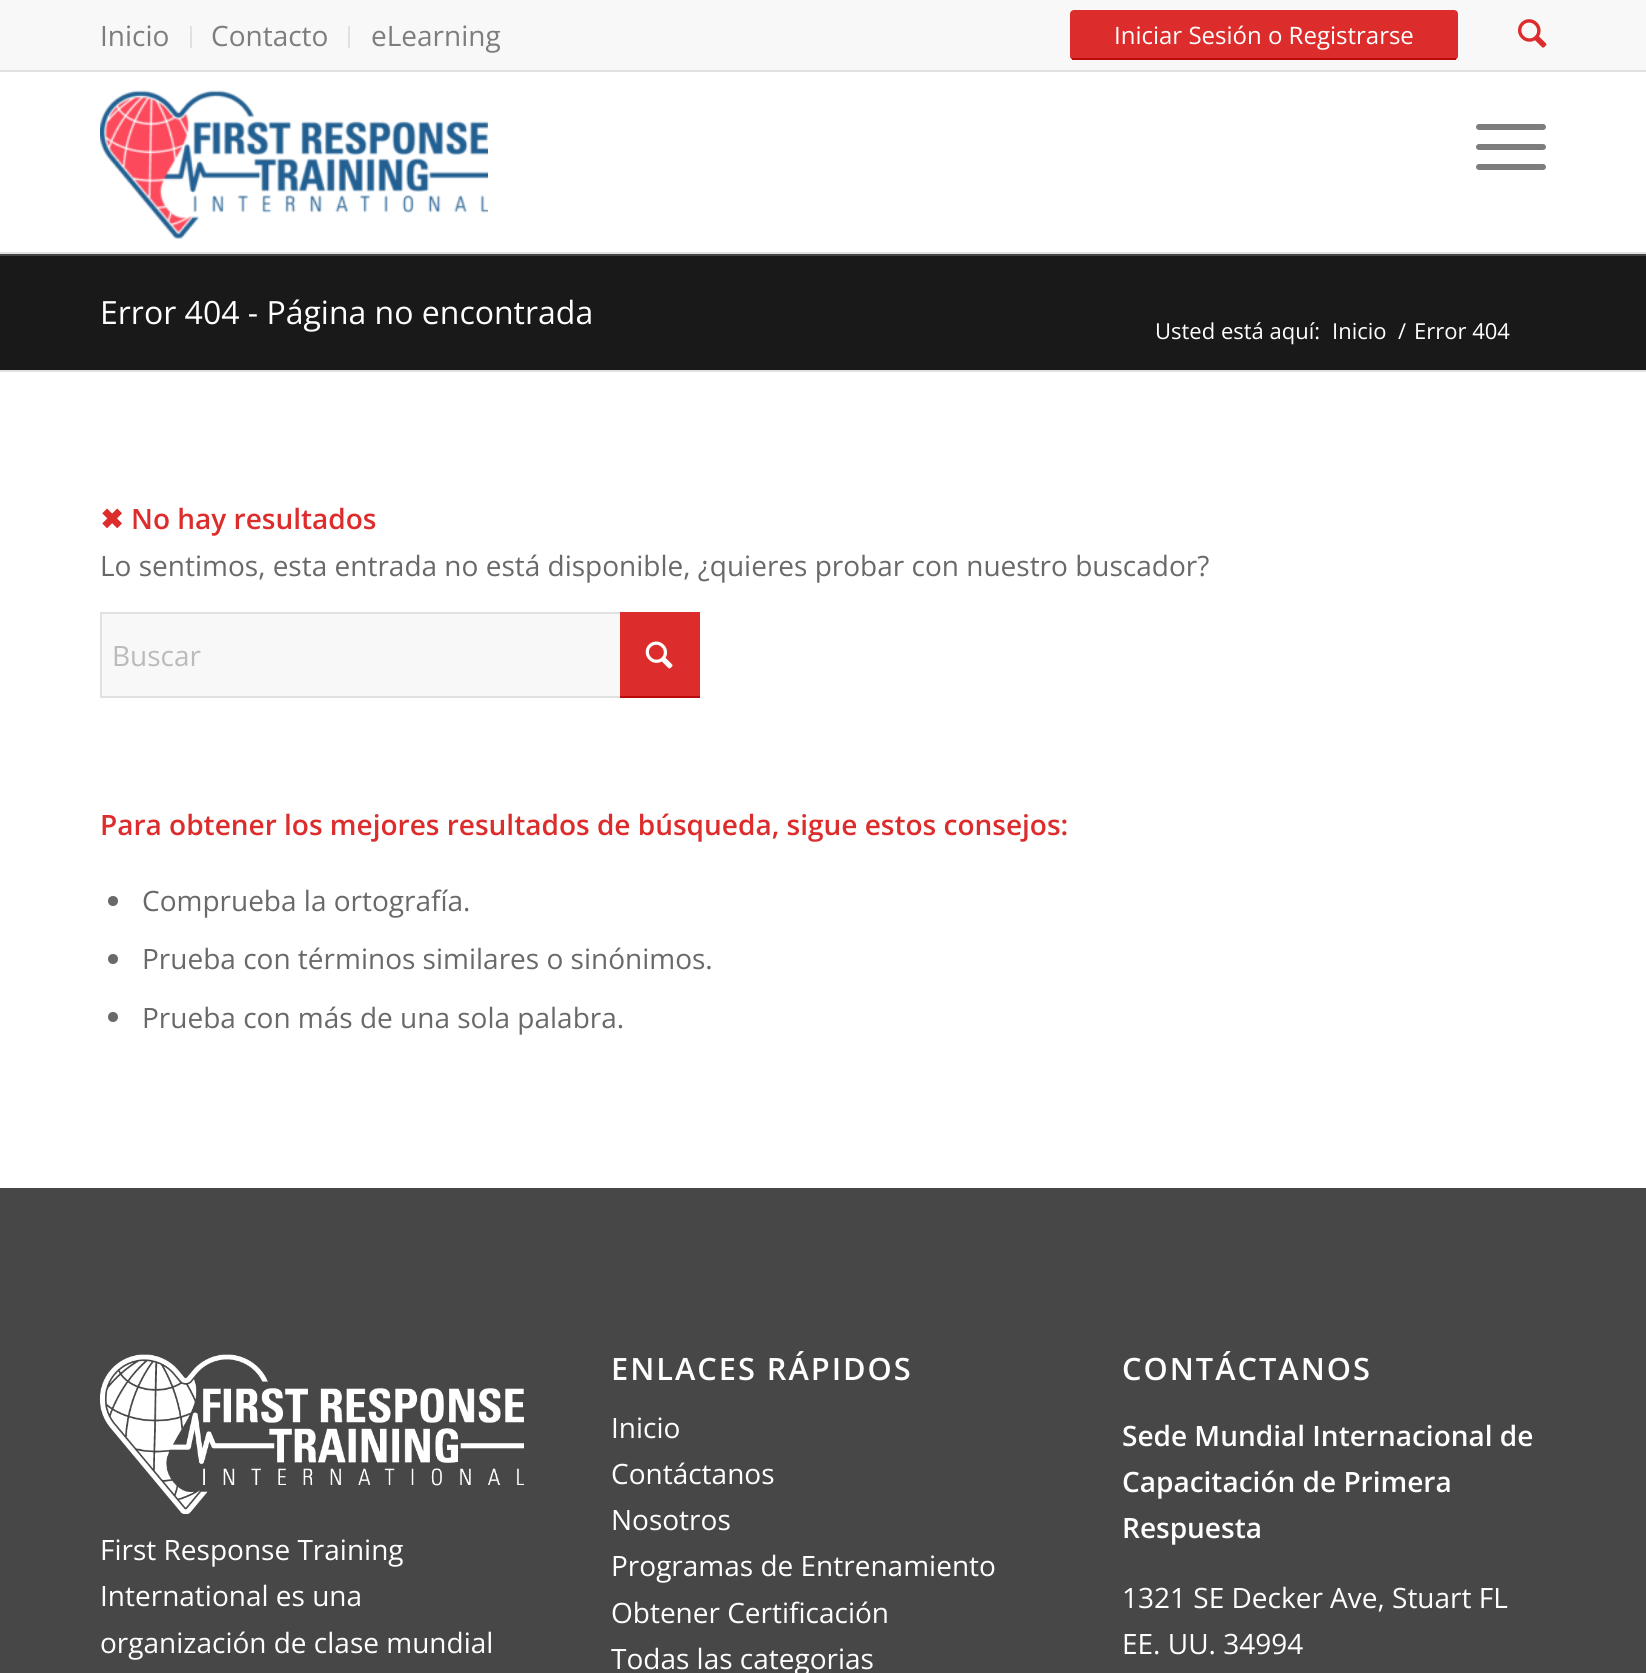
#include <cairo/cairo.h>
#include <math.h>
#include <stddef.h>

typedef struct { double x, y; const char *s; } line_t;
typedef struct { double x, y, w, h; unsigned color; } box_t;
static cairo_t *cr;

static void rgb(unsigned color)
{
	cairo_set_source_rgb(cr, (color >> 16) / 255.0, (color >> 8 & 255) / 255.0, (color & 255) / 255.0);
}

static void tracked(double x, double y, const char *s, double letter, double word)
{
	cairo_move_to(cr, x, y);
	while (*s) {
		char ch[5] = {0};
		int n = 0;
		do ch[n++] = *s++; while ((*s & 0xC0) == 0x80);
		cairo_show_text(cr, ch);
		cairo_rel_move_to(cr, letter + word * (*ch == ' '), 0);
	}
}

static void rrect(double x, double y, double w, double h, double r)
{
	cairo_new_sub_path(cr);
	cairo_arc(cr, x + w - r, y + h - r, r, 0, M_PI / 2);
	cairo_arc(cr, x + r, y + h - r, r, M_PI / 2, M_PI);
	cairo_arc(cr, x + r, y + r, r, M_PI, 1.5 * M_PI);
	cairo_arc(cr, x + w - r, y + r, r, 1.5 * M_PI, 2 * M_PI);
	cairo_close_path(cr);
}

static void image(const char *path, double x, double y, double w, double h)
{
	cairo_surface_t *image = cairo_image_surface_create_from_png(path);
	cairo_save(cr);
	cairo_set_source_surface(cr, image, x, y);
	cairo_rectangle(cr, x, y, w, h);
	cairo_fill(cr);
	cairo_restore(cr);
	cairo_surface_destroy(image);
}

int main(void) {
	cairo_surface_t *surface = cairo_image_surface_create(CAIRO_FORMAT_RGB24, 1646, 1673);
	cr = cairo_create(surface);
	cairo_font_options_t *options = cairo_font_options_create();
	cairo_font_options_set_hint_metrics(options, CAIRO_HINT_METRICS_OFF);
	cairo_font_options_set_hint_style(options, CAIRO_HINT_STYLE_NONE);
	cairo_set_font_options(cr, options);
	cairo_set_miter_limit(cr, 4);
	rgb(0xffffff);
	cairo_paint(cr);
	{
		static const box_t items[] = {
			{0, 0, 1646, 70, 0xf8f8f8},
			{0, 70, 1646, 2, 0xe1e1e1},
			{190, 26, 2, 22, 0xe1e1e1},
			{348, 26, 2, 22, 0xe1e1e1},
		};
		for (size_t i = 0; i < sizeof items / sizeof *items; i++) {
			rgb(items[i].color);
			cairo_rectangle(cr, items[i].x, items[i].y, items[i].w, items[i].h);
			cairo_fill(cr);
		}
	}
	rgb(0xdd2c2c);
	rrect(1070, 10, 388, 50, 4);
	cairo_fill(cr);
	rgb(0xbb0a0a);
	cairo_rectangle(cr, 1072, 58, 384, 2);
	cairo_fill(cr);
	image("img/1.png", 1518, 19, 29, 29);
	rgb(0xe1e1e1);
	cairo_rectangle(cr, 0, 252, 1646, 2);
	cairo_fill(cr);
	image("img/2.png", 100, 90, 388, 149);
	rgb(0x7d7d7d);
	rrect(1476, 144, 70, 6, 3);
	cairo_fill(cr);
	rrect(1476, 124, 70, 6, 3);
	cairo_fill(cr);
	rrect(1476, 164, 70, 6, 3);
	cairo_fill(cr);
	{
		static const box_t items[] = {
			{0, 256, 1646, 114, 0x191919},
			{0, 254, 1646, 2, 0x444444},
			{0, 370, 1646, 2, 0xe1e1e1},
			{102, 614, 518, 82, 0xf8f8f8},
		};
		for (size_t i = 0; i < sizeof items / sizeof *items; i++) {
			rgb(items[i].color);
			cairo_rectangle(cr, items[i].x, items[i].y, items[i].w, items[i].h);
			cairo_fill(cr);
		}
	}
	cairo_rectangle(cr, 101, 613, 598, 84);
	rgb(0xe1e1e1);
	cairo_stroke(cr);
	rgb(0xdd2c2c);
	cairo_rectangle(cr, 620, 612, 80, 84);
	cairo_fill(cr);
	rgb(0xbb0a0a);
	cairo_rectangle(cr, 620, 696, 80, 2);
	cairo_fill(cr);
	image("img/3.png", 645, 641, 28, 28);
	rgb(0x696969);
	cairo_arc(cr, 113, 901, 5, 0, 2 * M_PI);
	cairo_fill(cr);
	cairo_arc(cr, 113, 959, 5, 0, 2 * M_PI);
	cairo_fill(cr);
	cairo_arc(cr, 113, 1017, 5, 0, 2 * M_PI);
	cairo_fill(cr);
	rgb(0x474747);
	cairo_rectangle(cr, 0, 1188, 1646, 485);
	cairo_fill(cr);
	image("img/4.png", 100, 1354, 424, 160);
	cairo_select_font_face(cr, "Open Sans", CAIRO_FONT_SLANT_NORMAL, CAIRO_FONT_WEIGHT_NORMAL);
	cairo_set_font_size(cr, 28);
	rgb(0x7d7d7d);
	{
		static const line_t items[] = {
			{100, 46, "Inicio"},
			{211, 46, "Contacto"},
			{371, 46, "eLearning"},
		};
		for (size_t i = 0; i < sizeof items / sizeof *items; i++) {
			cairo_move_to(cr, items[i].x, items[i].y);
			cairo_show_text(cr, items[i].s);
		}
	}
	cairo_set_font_size(cr, 24);
	rgb(0xffffff);
	cairo_move_to(cr, 1114, 44);
	cairo_show_text(cr, "Iniciar Sesión o Registrarse");
	cairo_set_font_size(cr, 32);
	cairo_move_to(cr, 100, 324);
	cairo_show_text(cr, "Error 404 - Página no encontrada");
	cairo_set_font_size(cr, 22);
	{
		static const line_t items[] = {
			{1155, 339, "Usted está aquí:"},
			{1332, 339, "Inicio"},
			{1398, 339, "/"},
			{1414, 339, "Error 404"},
		};
		for (size_t i = 0; i < sizeof items / sizeof *items; i++) {
			cairo_move_to(cr, items[i].x, items[i].y);
			cairo_show_text(cr, items[i].s);
		}
	}
	cairo_select_font_face(cr, "DejaVu Sans", CAIRO_FONT_SLANT_NORMAL, CAIRO_FONT_WEIGHT_BOLD);
	cairo_set_font_size(cr, 28);
	rgb(0xdd2c2c);
	cairo_move_to(cr, 100, 529);
	cairo_show_text(cr, "✖");
	cairo_select_font_face(cr, "Open Sans SemiBold", CAIRO_FONT_SLANT_NORMAL, CAIRO_FONT_WEIGHT_NORMAL);
	cairo_move_to(cr, 131, 529);
	cairo_show_text(cr, "No hay resultados");
	cairo_select_font_face(cr, "Open Sans", CAIRO_FONT_SLANT_NORMAL, CAIRO_FONT_WEIGHT_NORMAL);
	rgb(0x696969);
	cairo_move_to(cr, 100, 576);
	cairo_show_text(cr, "Lo sentimos, esta entrada no está disponible, ¿quieres probar con nuestro buscador?");
	rgb(0xbbbbbb);
	cairo_move_to(cr, 112, 666);
	cairo_show_text(cr, "Buscar");
	cairo_select_font_face(cr, "Open Sans SemiBold", CAIRO_FONT_SLANT_NORMAL, CAIRO_FONT_WEIGHT_NORMAL);
	rgb(0xdd2c2c);
	cairo_move_to(cr, 100, 835);
	cairo_show_text(cr, "Para obtener los mejores resultados de búsqueda, sigue estos consejos:");
	cairo_select_font_face(cr, "Open Sans", CAIRO_FONT_SLANT_NORMAL, CAIRO_FONT_WEIGHT_NORMAL);
	rgb(0x696969);
	{
		static const line_t items[] = {
			{142, 911, "Comprueba la ortografía."},
			{142, 969, "Prueba con términos similares o sinónimos."},
			{142, 1028, "Prueba con más de una sola palabra."},
		};
		for (size_t i = 0; i < sizeof items / sizeof *items; i++) {
			cairo_move_to(cr, items[i].x, items[i].y);
			cairo_show_text(cr, items[i].s);
		}
	}
	rgb(0xffffff);
	{
		static const line_t items[] = {
			{100, 1560, "First Response Training"},
			{100, 1606, "International es una"},
			{100, 1653, "organización de clase mundial"},
		};
		for (size_t i = 0; i < sizeof items / sizeof *items; i++) {
			cairo_move_to(cr, items[i].x, items[i].y);
			cairo_show_text(cr, items[i].s);
		}
	}
	cairo_select_font_face(cr, "Open Sans SemiBold", CAIRO_FONT_SLANT_NORMAL, CAIRO_FONT_WEIGHT_NORMAL);
	cairo_set_font_size(cr, 30.75);
	tracked(611, 1380, "ENLACES RÁPIDOS", 2, 0);
	cairo_select_font_face(cr, "Open Sans", CAIRO_FONT_SLANT_NORMAL, CAIRO_FONT_WEIGHT_NORMAL);
	cairo_set_font_size(cr, 28);
	{
		static const line_t items[] = {
			{611, 1438, "Inicio"},
			{611, 1484, "Contáctanos"},
			{611, 1530, "Nosotros"},
			{611, 1576, "Programas de Entrenamiento"},
			{611, 1623, "Obtener Certificación"},
			{611, 1669, "Todas las categorias"},
		};
		for (size_t i = 0; i < sizeof items / sizeof *items; i++) {
			cairo_move_to(cr, items[i].x, items[i].y);
			cairo_show_text(cr, items[i].s);
		}
	}
	cairo_select_font_face(cr, "Open Sans SemiBold", CAIRO_FONT_SLANT_NORMAL, CAIRO_FONT_WEIGHT_NORMAL);
	cairo_set_font_size(cr, 30.75);
	tracked(1122, 1380, "CONTÁCTANOS", 2, 0);
	cairo_set_font_size(cr, 28);
	{
		static const line_t items[] = {
			{1122, 1446, "Sede Mundial Internacional de"},
			{1122, 1492, "Capacitación de Primera"},
			{1122, 1538, "Respuesta"},
		};
		for (size_t i = 0; i < sizeof items / sizeof *items; i++) {
			cairo_move_to(cr, items[i].x, items[i].y);
			cairo_show_text(cr, items[i].s);
		}
	}
	cairo_select_font_face(cr, "Open Sans", CAIRO_FONT_SLANT_NORMAL, CAIRO_FONT_WEIGHT_NORMAL);
	cairo_move_to(cr, 1122, 1608);
	cairo_show_text(cr, "1321 SE Decker Ave, Stuart FL");
	cairo_move_to(cr, 1122, 1654);
	cairo_show_text(cr, "EE. UU. 34994");
	cairo_surface_write_to_png(surface, "page.png");
	cairo_font_options_destroy(options);
	cairo_destroy(cr);
	cairo_surface_destroy(surface);
	return 0;
}
